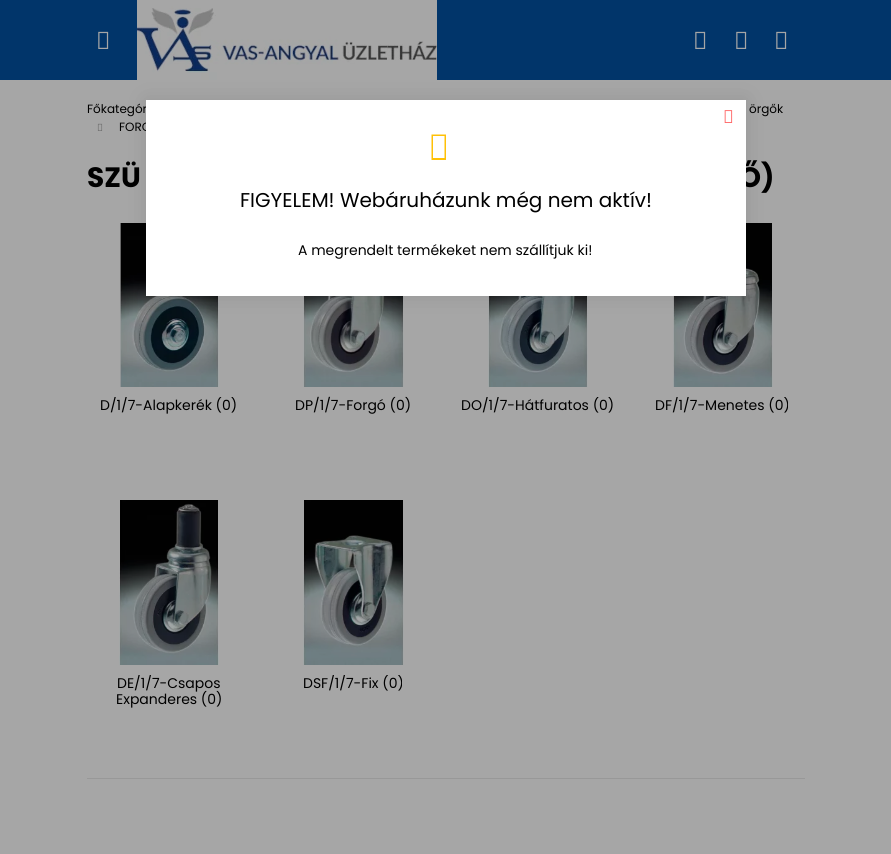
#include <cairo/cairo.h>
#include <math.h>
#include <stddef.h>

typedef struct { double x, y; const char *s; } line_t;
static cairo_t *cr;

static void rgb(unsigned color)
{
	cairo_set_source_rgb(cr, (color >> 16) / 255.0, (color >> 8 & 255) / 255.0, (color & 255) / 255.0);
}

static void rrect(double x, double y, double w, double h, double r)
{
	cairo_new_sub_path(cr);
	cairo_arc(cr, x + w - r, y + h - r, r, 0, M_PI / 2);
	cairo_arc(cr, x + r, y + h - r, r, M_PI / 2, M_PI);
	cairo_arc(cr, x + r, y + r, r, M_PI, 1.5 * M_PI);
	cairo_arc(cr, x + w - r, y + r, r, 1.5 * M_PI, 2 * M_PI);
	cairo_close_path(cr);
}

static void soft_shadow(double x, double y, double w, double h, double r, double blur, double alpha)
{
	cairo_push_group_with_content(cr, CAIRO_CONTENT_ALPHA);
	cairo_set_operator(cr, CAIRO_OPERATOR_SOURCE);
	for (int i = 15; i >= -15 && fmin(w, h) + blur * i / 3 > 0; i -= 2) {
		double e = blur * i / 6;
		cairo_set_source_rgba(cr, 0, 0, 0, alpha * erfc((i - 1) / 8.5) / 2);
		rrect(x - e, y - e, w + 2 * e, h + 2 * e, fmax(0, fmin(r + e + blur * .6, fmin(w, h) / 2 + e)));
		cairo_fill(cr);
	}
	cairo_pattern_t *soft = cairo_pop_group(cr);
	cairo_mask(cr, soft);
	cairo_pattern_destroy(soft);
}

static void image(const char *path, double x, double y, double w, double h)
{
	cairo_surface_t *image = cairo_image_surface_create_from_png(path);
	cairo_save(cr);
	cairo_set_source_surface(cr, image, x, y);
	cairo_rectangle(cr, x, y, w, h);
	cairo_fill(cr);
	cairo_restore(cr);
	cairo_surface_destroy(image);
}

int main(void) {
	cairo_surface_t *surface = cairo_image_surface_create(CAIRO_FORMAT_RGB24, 891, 854);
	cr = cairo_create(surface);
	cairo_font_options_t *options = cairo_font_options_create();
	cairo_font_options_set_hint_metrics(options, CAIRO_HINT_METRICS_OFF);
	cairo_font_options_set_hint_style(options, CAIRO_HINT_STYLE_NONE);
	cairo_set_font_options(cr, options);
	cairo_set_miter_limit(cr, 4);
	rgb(0xa6a6a6);
	cairo_paint(cr);
	rgb(0x01356a);
	cairo_rectangle(cr, 0, 0, 891, 80);
	cairo_fill(cr);
	image("img/1.png", 98, 31, 11, 18);
	image("img/2.png", 137, 0, 300, 80);
	image("img/1.png", 695, 31, 11, 18);
	image("img/1.png", 736, 31, 11, 18);
	image("img/1.png", 776, 31, 11, 18);
	image("img/3.png", 97, 123, 6, 8);
	rgb(0x989898);
	cairo_rectangle(cr, 87, 778, 718, 1);
	cairo_fill(cr);
	image("img/4.png", 120, 223, 99, 164);
	image("img/5.png", 303, 296, 101, 91);
	image("img/6.png", 488, 296, 100, 91);
	image("img/7.png", 673, 223, 100, 164);
	image("img/8.png", 119, 500, 100, 165);
	image("img/9.png", 303, 500, 101, 165);
	rgb(0x000000);
	soft_shadow(146, 100, 600, 196, 0, 10, 0.1);
	cairo_select_font_face(cr, "Poppins", CAIRO_FONT_SLANT_NORMAL, CAIRO_FONT_WEIGHT_NORMAL);
	cairo_set_font_size(cr, 12);
	rgb(0x000000);
	{
		static const line_t items[] = {
			{87, 113, "Főkategór"},
			{749, 113, "örgők"},
			{119, 131, "FORC"},
		};
		for (size_t i = 0; i < sizeof items / sizeof *items; i++) {
			cairo_move_to(cr, items[i].x, items[i].y);
			cairo_show_text(cr, items[i].s);
		}
	}
	cairo_select_font_face(cr, "Poppins", CAIRO_FONT_SLANT_NORMAL, CAIRO_FONT_WEIGHT_BOLD);
	cairo_set_font_size(cr, 28);
	cairo_move_to(cr, 87, 187);
	cairo_show_text(cr, "SZÜ");
	cairo_move_to(cr, 739, 187);
	cairo_show_text(cr, "Ő)");
	cairo_save(cr);
	cairo_rectangle(cr, 87, 397, 164, 17);
	cairo_clip(cr);
	cairo_select_font_face(cr, "Poppins", CAIRO_FONT_SLANT_NORMAL, CAIRO_FONT_WEIGHT_NORMAL);
	cairo_set_font_size(cr, 14);
	cairo_move_to(cr, 100, 410);
	cairo_show_text(cr, "D/1/7-Alapkerék (0)");
	cairo_restore(cr);
	cairo_select_font_face(cr, "Poppins", CAIRO_FONT_SLANT_NORMAL, CAIRO_FONT_WEIGHT_NORMAL);
	cairo_set_font_size(cr, 14);
	cairo_move_to(cr, 295, 410);
	cairo_show_text(cr, "DP/1/7-Forgó (0)");
	cairo_save(cr);
	cairo_rectangle(cr, 456, 397, 164, 17);
	cairo_clip(cr);
	cairo_move_to(cr, 461, 410);
	cairo_show_text(cr, "DO/1/7-Hátfuratos (0)");
	cairo_restore(cr);
	cairo_save(cr);
	cairo_rectangle(cr, 640, 397, 165, 17);
	cairo_clip(cr);
	cairo_move_to(cr, 655, 410);
	cairo_show_text(cr, "DF/1/7-Menetes (0)");
	cairo_restore(cr);
	cairo_save(cr);
	cairo_rectangle(cr, 87, 675, 164, 33);
	cairo_clip(cr);
	cairo_move_to(cr, 117, 688);
	cairo_show_text(cr, "DE/1/7-Csapos");
	cairo_restore(cr);
	cairo_move_to(cr, 116, 704);
	cairo_show_text(cr, "Expanderes (0)");
	cairo_save(cr);
	cairo_rectangle(cr, 271, 675, 165, 16);
	cairo_clip(cr);
	cairo_move_to(cr, 303, 688);
	cairo_show_text(cr, "DSF/1/7-Fix (0)");
	cairo_restore(cr);
	rgb(0xffffff);
	cairo_rectangle(cr, 146, 100, 600, 196);
	cairo_fill(cr);
	image("img/10.png", 724, 110, 9, 13);
	rgb(0xffc107);
	cairo_new_path(cr);
	cairo_move_to(cr, 431.5, 160);
	cairo_line_to(cr, 431.5, 134.5);
	cairo_line_to(cr, 446, 134.5);
	cairo_line_to(cr, 446, 160);
	cairo_close_path(cr);
	cairo_move_to(cr, 433, 158);
	cairo_line_to(cr, 444.5, 158);
	cairo_line_to(cr, 444.5, 136);
	cairo_line_to(cr, 433, 136);
	cairo_close_path(cr);
	cairo_fill(cr);
	cairo_set_font_size(cr, 20);
	rgb(0x000000);
	cairo_move_to(cr, 240, 207);
	cairo_show_text(cr, "FIGYELEM! Webáruházunk még nem aktív!");
	cairo_set_font_size(cr, 14);
	cairo_move_to(cr, 298, 255);
	cairo_show_text(cr, "A megrendelt termékeket nem szállítjuk ki!");
	cairo_surface_write_to_png(surface, "page.png");
	cairo_font_options_destroy(options);
	cairo_destroy(cr);
	cairo_surface_destroy(surface);
	return 0;
}
